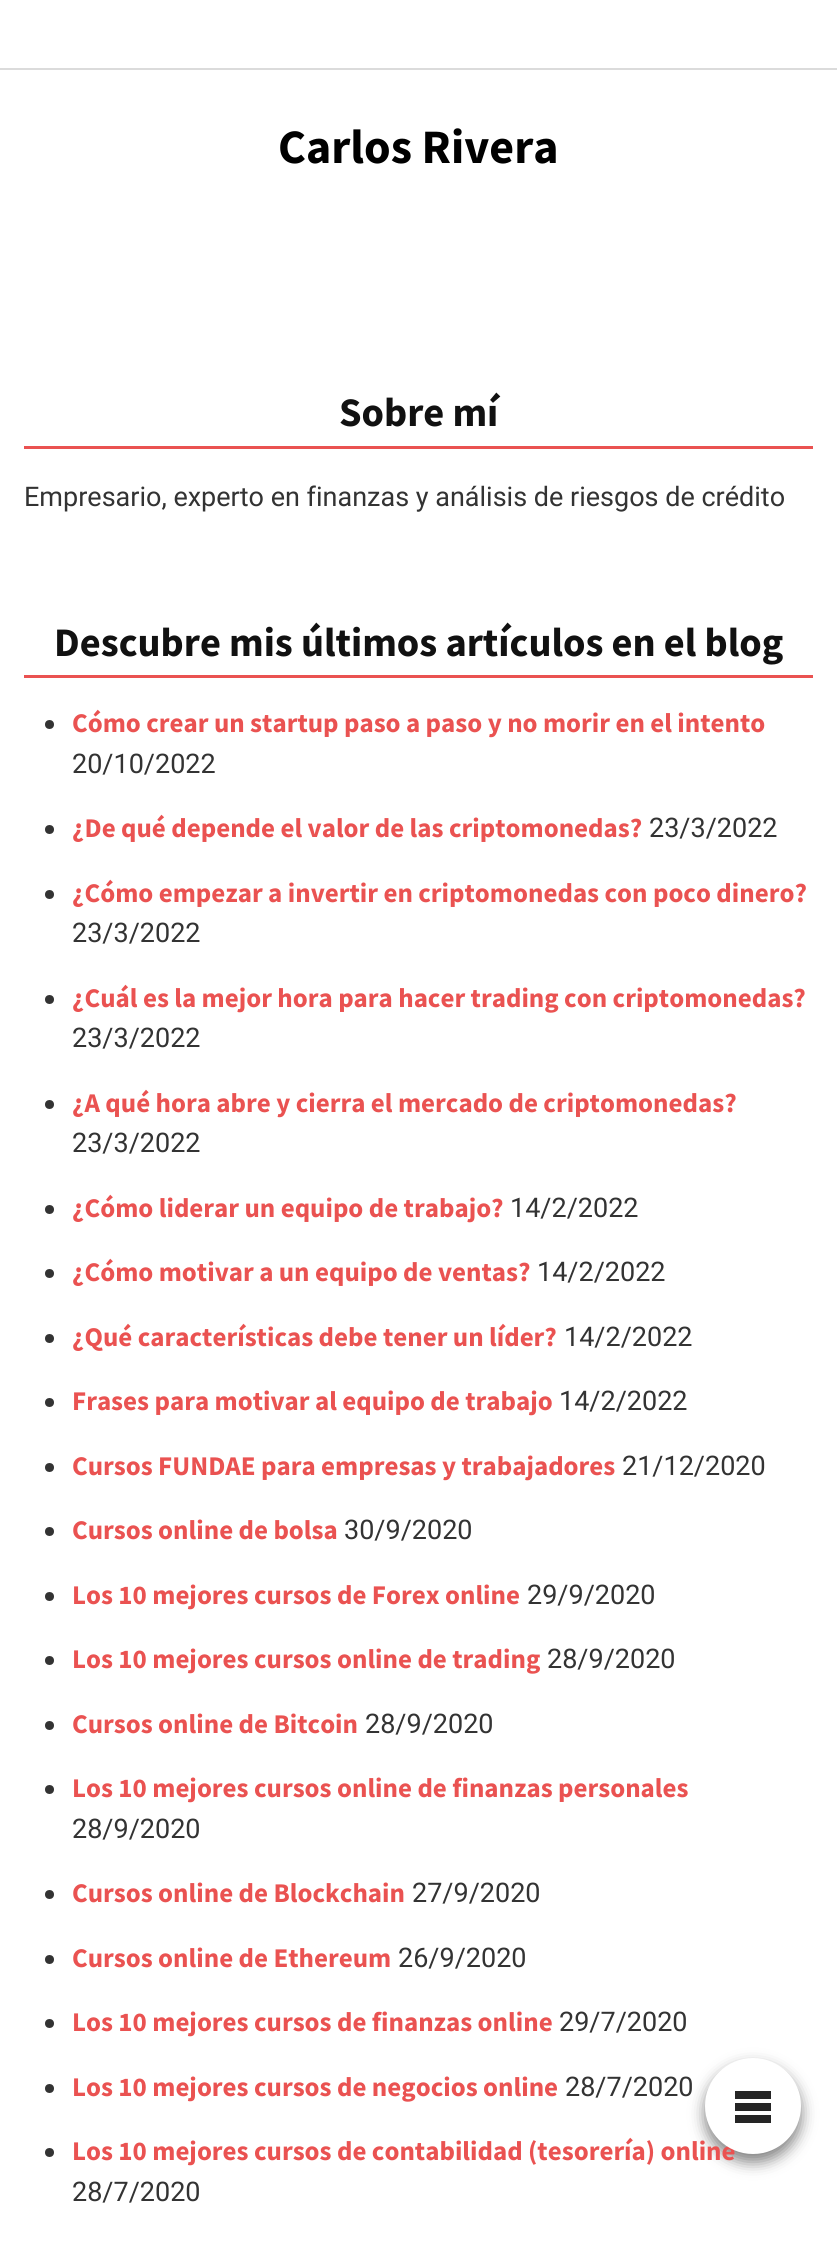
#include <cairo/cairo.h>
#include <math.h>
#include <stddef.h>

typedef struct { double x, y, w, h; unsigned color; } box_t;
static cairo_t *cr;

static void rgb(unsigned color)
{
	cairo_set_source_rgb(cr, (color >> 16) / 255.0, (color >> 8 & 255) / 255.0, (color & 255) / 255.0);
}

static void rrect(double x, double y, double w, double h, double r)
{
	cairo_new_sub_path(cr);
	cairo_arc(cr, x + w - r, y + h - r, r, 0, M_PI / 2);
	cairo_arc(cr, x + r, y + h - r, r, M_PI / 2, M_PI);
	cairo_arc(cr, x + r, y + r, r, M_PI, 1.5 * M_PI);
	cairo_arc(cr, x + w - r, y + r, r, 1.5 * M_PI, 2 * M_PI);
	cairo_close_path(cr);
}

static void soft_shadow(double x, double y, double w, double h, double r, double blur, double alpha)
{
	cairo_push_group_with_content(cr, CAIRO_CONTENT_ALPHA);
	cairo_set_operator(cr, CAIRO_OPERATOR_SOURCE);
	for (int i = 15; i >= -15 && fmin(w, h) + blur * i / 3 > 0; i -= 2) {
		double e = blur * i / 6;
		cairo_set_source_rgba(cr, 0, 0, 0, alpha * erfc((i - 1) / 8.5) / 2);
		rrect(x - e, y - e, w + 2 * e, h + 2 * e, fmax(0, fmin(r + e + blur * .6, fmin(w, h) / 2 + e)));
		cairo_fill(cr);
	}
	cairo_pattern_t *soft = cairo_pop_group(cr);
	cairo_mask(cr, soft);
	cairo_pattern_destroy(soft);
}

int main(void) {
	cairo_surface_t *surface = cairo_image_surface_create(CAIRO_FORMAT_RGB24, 837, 2250);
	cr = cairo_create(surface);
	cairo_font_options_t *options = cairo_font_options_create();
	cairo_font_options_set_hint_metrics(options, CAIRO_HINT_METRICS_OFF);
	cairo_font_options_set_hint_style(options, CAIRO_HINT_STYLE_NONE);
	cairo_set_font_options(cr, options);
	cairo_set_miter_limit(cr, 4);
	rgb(0xffffff);
	cairo_paint(cr);
	{
		static const box_t items[] = {
			{0, 68, 837, 2, 0xdbdbdb},
			{24, 446, 789, 3, 0xea5251},
			{24, 675, 789, 3, 0xea5251},
		};
		for (size_t i = 0; i < sizeof items / sizeof *items; i++) {
			rgb(items[i].color);
			cairo_rectangle(cr, items[i].x, items[i].y, items[i].w, items[i].h);
			cairo_fill(cr);
		}
	}
	rgb(0x333333);
	cairo_arc(cr, 49.5, 724.5, 4.5, 0, 2 * M_PI);
	cairo_fill(cr);
	cairo_arc(cr, 49.5, 829.5, 4.5, 0, 2 * M_PI);
	cairo_fill(cr);
	cairo_arc(cr, 49.5, 894.5, 4.5, 0, 2 * M_PI);
	cairo_fill(cr);
	cairo_arc(cr, 49.5, 999.5, 4.5, 0, 2 * M_PI);
	cairo_fill(cr);
	cairo_arc(cr, 49.5, 1104.5, 4.5, 0, 2 * M_PI);
	cairo_fill(cr);
	cairo_arc(cr, 49.5, 1209.5, 4.5, 0, 2 * M_PI);
	cairo_fill(cr);
	cairo_arc(cr, 49.5, 1273.5, 4.5, 0, 2 * M_PI);
	cairo_fill(cr);
	cairo_arc(cr, 49.5, 1338.5, 4.5, 0, 2 * M_PI);
	cairo_fill(cr);
	cairo_arc(cr, 49.5, 1402.5, 4.5, 0, 2 * M_PI);
	cairo_fill(cr);
	cairo_arc(cr, 49.5, 1467.5, 4.5, 0, 2 * M_PI);
	cairo_fill(cr);
	cairo_arc(cr, 49.5, 1531.5, 4.5, 0, 2 * M_PI);
	cairo_fill(cr);
	cairo_arc(cr, 49.5, 1596.5, 4.5, 0, 2 * M_PI);
	cairo_fill(cr);
	cairo_arc(cr, 49.5, 1660.5, 4.5, 0, 2 * M_PI);
	cairo_fill(cr);
	cairo_arc(cr, 49.5, 1725.5, 4.5, 0, 2 * M_PI);
	cairo_fill(cr);
	cairo_arc(cr, 49.5, 1789.5, 4.5, 0, 2 * M_PI);
	cairo_fill(cr);
	cairo_arc(cr, 49.5, 1894.5, 4.5, 0, 2 * M_PI);
	cairo_fill(cr);
	cairo_arc(cr, 49.5, 1959.5, 4.5, 0, 2 * M_PI);
	cairo_fill(cr);
	cairo_arc(cr, 49.5, 2023.5, 4.5, 0, 2 * M_PI);
	cairo_fill(cr);
	cairo_arc(cr, 49.5, 2088.5, 4.5, 0, 2 * M_PI);
	cairo_fill(cr);
	cairo_arc(cr, 49.5, 2152.5, 4.5, 0, 2 * M_PI);
	cairo_fill(cr);
	rgb(0x000000);
	soft_shadow(705, 2066, 96, 96, 48, 7.5, 0.5);
	cairo_select_font_face(cr, "Source Sans Pro", CAIRO_FONT_SLANT_NORMAL, CAIRO_FONT_WEIGHT_BOLD);
	cairo_set_font_size(cr, 48);
	rgb(0x000000);
	cairo_move_to(cr, 278, 163);
	cairo_show_text(cr, "Carlos Rivera");
	cairo_set_font_size(cr, 40.5);
	rgb(0x111111);
	cairo_move_to(cr, 339, 426);
	cairo_show_text(cr, "Sobre mí");
	cairo_select_font_face(cr, "Roboto", CAIRO_FONT_SLANT_NORMAL, CAIRO_FONT_WEIGHT_NORMAL);
	cairo_set_font_size(cr, 27);
	rgb(0x333333);
	cairo_move_to(cr, 24, 506);
	cairo_show_text(cr, "Empresario, experto en finanzas y análisis de riesgos de crédito");
	cairo_select_font_face(cr, "Source Sans Pro", CAIRO_FONT_SLANT_NORMAL, CAIRO_FONT_WEIGHT_BOLD);
	cairo_set_font_size(cr, 40.5);
	rgb(0x111111);
	cairo_move_to(cr, 54, 656);
	cairo_show_text(cr, "Descubre mis últimos artículos en el blog");
	cairo_set_font_size(cr, 27);
	rgb(0xea5251);
	cairo_move_to(cr, 72, 732);
	cairo_show_text(cr, "Cómo crear un startup paso a paso y no morir en el intento");
	cairo_select_font_face(cr, "Roboto", CAIRO_FONT_SLANT_NORMAL, CAIRO_FONT_WEIGHT_NORMAL);
	rgb(0x333333);
	cairo_move_to(cr, 72, 773);
	cairo_show_text(cr, "20/10/2022");
	cairo_select_font_face(cr, "Source Sans Pro", CAIRO_FONT_SLANT_NORMAL, CAIRO_FONT_WEIGHT_BOLD);
	rgb(0xea5251);
	cairo_move_to(cr, 72, 837);
	cairo_show_text(cr, "¿De qué depende el valor de las criptomonedas?");
	cairo_select_font_face(cr, "Roboto", CAIRO_FONT_SLANT_NORMAL, CAIRO_FONT_WEIGHT_NORMAL);
	rgb(0x333333);
	cairo_move_to(cr, 649, 837);
	cairo_show_text(cr, "23/3/2022");
	cairo_select_font_face(cr, "Source Sans Pro", CAIRO_FONT_SLANT_NORMAL, CAIRO_FONT_WEIGHT_BOLD);
	rgb(0xea5251);
	cairo_move_to(cr, 72, 902);
	cairo_show_text(cr, "¿Cómo empezar a invertir en criptomonedas con poco dinero?");
	cairo_select_font_face(cr, "Roboto", CAIRO_FONT_SLANT_NORMAL, CAIRO_FONT_WEIGHT_NORMAL);
	rgb(0x333333);
	cairo_move_to(cr, 72, 942);
	cairo_show_text(cr, "23/3/2022");
	cairo_select_font_face(cr, "Source Sans Pro", CAIRO_FONT_SLANT_NORMAL, CAIRO_FONT_WEIGHT_BOLD);
	rgb(0xea5251);
	cairo_move_to(cr, 72, 1007);
	cairo_show_text(cr, "¿Cuál es la mejor hora para hacer trading con criptomonedas?");
	cairo_select_font_face(cr, "Roboto", CAIRO_FONT_SLANT_NORMAL, CAIRO_FONT_WEIGHT_NORMAL);
	rgb(0x333333);
	cairo_move_to(cr, 72, 1047);
	cairo_show_text(cr, "23/3/2022");
	cairo_select_font_face(cr, "Source Sans Pro", CAIRO_FONT_SLANT_NORMAL, CAIRO_FONT_WEIGHT_BOLD);
	rgb(0xea5251);
	cairo_move_to(cr, 72, 1112);
	cairo_show_text(cr, "¿A qué hora abre y cierra el mercado de criptomonedas?");
	cairo_select_font_face(cr, "Roboto", CAIRO_FONT_SLANT_NORMAL, CAIRO_FONT_WEIGHT_NORMAL);
	rgb(0x333333);
	cairo_move_to(cr, 72, 1152);
	cairo_show_text(cr, "23/3/2022");
	cairo_select_font_face(cr, "Source Sans Pro", CAIRO_FONT_SLANT_NORMAL, CAIRO_FONT_WEIGHT_BOLD);
	rgb(0xea5251);
	cairo_move_to(cr, 72, 1217);
	cairo_show_text(cr, "¿Cómo liderar un equipo de trabajo?");
	cairo_select_font_face(cr, "Roboto", CAIRO_FONT_SLANT_NORMAL, CAIRO_FONT_WEIGHT_NORMAL);
	rgb(0x333333);
	cairo_move_to(cr, 510, 1217);
	cairo_show_text(cr, "14/2/2022");
	cairo_select_font_face(cr, "Source Sans Pro", CAIRO_FONT_SLANT_NORMAL, CAIRO_FONT_WEIGHT_BOLD);
	rgb(0xea5251);
	cairo_move_to(cr, 72, 1281);
	cairo_show_text(cr, "¿Cómo motivar a un equipo de ventas?");
	cairo_select_font_face(cr, "Roboto", CAIRO_FONT_SLANT_NORMAL, CAIRO_FONT_WEIGHT_NORMAL);
	rgb(0x333333);
	cairo_move_to(cr, 537, 1281);
	cairo_show_text(cr, "14/2/2022");
	cairo_select_font_face(cr, "Source Sans Pro", CAIRO_FONT_SLANT_NORMAL, CAIRO_FONT_WEIGHT_BOLD);
	rgb(0xea5251);
	cairo_move_to(cr, 72, 1346);
	cairo_show_text(cr, "¿Qué características debe tener un líder?");
	cairo_select_font_face(cr, "Roboto", CAIRO_FONT_SLANT_NORMAL, CAIRO_FONT_WEIGHT_NORMAL);
	rgb(0x333333);
	cairo_move_to(cr, 564, 1346);
	cairo_show_text(cr, "14/2/2022");
	cairo_select_font_face(cr, "Source Sans Pro", CAIRO_FONT_SLANT_NORMAL, CAIRO_FONT_WEIGHT_BOLD);
	rgb(0xea5251);
	cairo_move_to(cr, 72, 1410);
	cairo_show_text(cr, "Frases para motivar al equipo de trabajo");
	cairo_select_font_face(cr, "Roboto", CAIRO_FONT_SLANT_NORMAL, CAIRO_FONT_WEIGHT_NORMAL);
	rgb(0x333333);
	cairo_move_to(cr, 559, 1410);
	cairo_show_text(cr, "14/2/2022");
	cairo_select_font_face(cr, "Source Sans Pro", CAIRO_FONT_SLANT_NORMAL, CAIRO_FONT_WEIGHT_BOLD);
	rgb(0xea5251);
	cairo_move_to(cr, 72, 1475);
	cairo_show_text(cr, "Cursos FUNDAE para empresas y trabajadores");
	cairo_select_font_face(cr, "Roboto", CAIRO_FONT_SLANT_NORMAL, CAIRO_FONT_WEIGHT_NORMAL);
	rgb(0x333333);
	cairo_move_to(cr, 622, 1475);
	cairo_show_text(cr, "21/12/2020");
	cairo_select_font_face(cr, "Source Sans Pro", CAIRO_FONT_SLANT_NORMAL, CAIRO_FONT_WEIGHT_BOLD);
	rgb(0xea5251);
	cairo_move_to(cr, 72, 1539);
	cairo_show_text(cr, "Cursos online de bolsa");
	cairo_select_font_face(cr, "Roboto", CAIRO_FONT_SLANT_NORMAL, CAIRO_FONT_WEIGHT_NORMAL);
	rgb(0x333333);
	cairo_move_to(cr, 344, 1539);
	cairo_show_text(cr, "30/9/2020");
	cairo_select_font_face(cr, "Source Sans Pro", CAIRO_FONT_SLANT_NORMAL, CAIRO_FONT_WEIGHT_BOLD);
	rgb(0xea5251);
	cairo_move_to(cr, 72, 1604);
	cairo_show_text(cr, "Los 10 mejores cursos de Forex online");
	cairo_select_font_face(cr, "Roboto", CAIRO_FONT_SLANT_NORMAL, CAIRO_FONT_WEIGHT_NORMAL);
	rgb(0x333333);
	cairo_move_to(cr, 527, 1604);
	cairo_show_text(cr, "29/9/2020");
	cairo_select_font_face(cr, "Source Sans Pro", CAIRO_FONT_SLANT_NORMAL, CAIRO_FONT_WEIGHT_BOLD);
	rgb(0xea5251);
	cairo_move_to(cr, 72, 1668);
	cairo_show_text(cr, "Los 10 mejores cursos online de trading");
	cairo_select_font_face(cr, "Roboto", CAIRO_FONT_SLANT_NORMAL, CAIRO_FONT_WEIGHT_NORMAL);
	rgb(0x333333);
	cairo_move_to(cr, 547, 1668);
	cairo_show_text(cr, "28/9/2020");
	cairo_select_font_face(cr, "Source Sans Pro", CAIRO_FONT_SLANT_NORMAL, CAIRO_FONT_WEIGHT_BOLD);
	rgb(0xea5251);
	cairo_move_to(cr, 72, 1733);
	cairo_show_text(cr, "Cursos online de Bitcoin");
	cairo_select_font_face(cr, "Roboto", CAIRO_FONT_SLANT_NORMAL, CAIRO_FONT_WEIGHT_NORMAL);
	rgb(0x333333);
	cairo_move_to(cr, 365, 1733);
	cairo_show_text(cr, "28/9/2020");
	cairo_select_font_face(cr, "Source Sans Pro", CAIRO_FONT_SLANT_NORMAL, CAIRO_FONT_WEIGHT_BOLD);
	rgb(0xea5251);
	cairo_move_to(cr, 72, 1797);
	cairo_show_text(cr, "Los 10 mejores cursos online de finanzas personales");
	cairo_select_font_face(cr, "Roboto", CAIRO_FONT_SLANT_NORMAL, CAIRO_FONT_WEIGHT_NORMAL);
	rgb(0x333333);
	cairo_move_to(cr, 72, 1838);
	cairo_show_text(cr, "28/9/2020");
	cairo_select_font_face(cr, "Source Sans Pro", CAIRO_FONT_SLANT_NORMAL, CAIRO_FONT_WEIGHT_BOLD);
	rgb(0xea5251);
	cairo_move_to(cr, 72, 1902);
	cairo_show_text(cr, "Cursos online de Blockchain");
	cairo_select_font_face(cr, "Roboto", CAIRO_FONT_SLANT_NORMAL, CAIRO_FONT_WEIGHT_NORMAL);
	rgb(0x333333);
	cairo_move_to(cr, 412, 1902);
	cairo_show_text(cr, "27/9/2020");
	cairo_select_font_face(cr, "Source Sans Pro", CAIRO_FONT_SLANT_NORMAL, CAIRO_FONT_WEIGHT_BOLD);
	rgb(0xea5251);
	cairo_move_to(cr, 72, 1967);
	cairo_show_text(cr, "Cursos online de Ethereum");
	cairo_select_font_face(cr, "Roboto", CAIRO_FONT_SLANT_NORMAL, CAIRO_FONT_WEIGHT_NORMAL);
	rgb(0x333333);
	cairo_move_to(cr, 398, 1967);
	cairo_show_text(cr, "26/9/2020");
	cairo_select_font_face(cr, "Source Sans Pro", CAIRO_FONT_SLANT_NORMAL, CAIRO_FONT_WEIGHT_BOLD);
	rgb(0xea5251);
	cairo_move_to(cr, 72, 2031);
	cairo_show_text(cr, "Los 10 mejores cursos de finanzas online");
	cairo_select_font_face(cr, "Roboto", CAIRO_FONT_SLANT_NORMAL, CAIRO_FONT_WEIGHT_NORMAL);
	rgb(0x333333);
	cairo_move_to(cr, 559, 2031);
	cairo_show_text(cr, "29/7/2020");
	cairo_select_font_face(cr, "Source Sans Pro", CAIRO_FONT_SLANT_NORMAL, CAIRO_FONT_WEIGHT_BOLD);
	rgb(0xea5251);
	cairo_move_to(cr, 72, 2096);
	cairo_show_text(cr, "Los 10 mejores cursos de negocios online");
	cairo_select_font_face(cr, "Roboto", CAIRO_FONT_SLANT_NORMAL, CAIRO_FONT_WEIGHT_NORMAL);
	rgb(0x333333);
	cairo_move_to(cr, 565, 2096);
	cairo_show_text(cr, "28/7/2020");
	cairo_select_font_face(cr, "Source Sans Pro", CAIRO_FONT_SLANT_NORMAL, CAIRO_FONT_WEIGHT_BOLD);
	rgb(0xea5251);
	cairo_move_to(cr, 72, 2160);
	cairo_show_text(cr, "Los 10 mejores cursos de contabilidad (tesorería) online");
	cairo_select_font_face(cr, "Roboto", CAIRO_FONT_SLANT_NORMAL, CAIRO_FONT_WEIGHT_NORMAL);
	rgb(0x333333);
	cairo_move_to(cr, 72, 2201);
	cairo_show_text(cr, "28/7/2020");
	rgb(0xffffff);
	cairo_new_path(cr);
	cairo_arc(cr, 753, 2106, 48, 0, 2 * M_PI);
	cairo_fill(cr);
	{
		static const box_t items[] = {
			{735, 2103, 36, 8, 0x252525},
			{735, 2091, 36, 8, 0x252525},
			{735, 2115, 36, 8, 0x252525},
		};
		for (size_t i = 0; i < sizeof items / sizeof *items; i++) {
			rgb(items[i].color);
			cairo_rectangle(cr, items[i].x, items[i].y, items[i].w, items[i].h);
			cairo_fill(cr);
		}
	}
	cairo_surface_write_to_png(surface, "page.png");
	cairo_font_options_destroy(options);
	cairo_destroy(cr);
	cairo_surface_destroy(surface);
	return 0;
}
